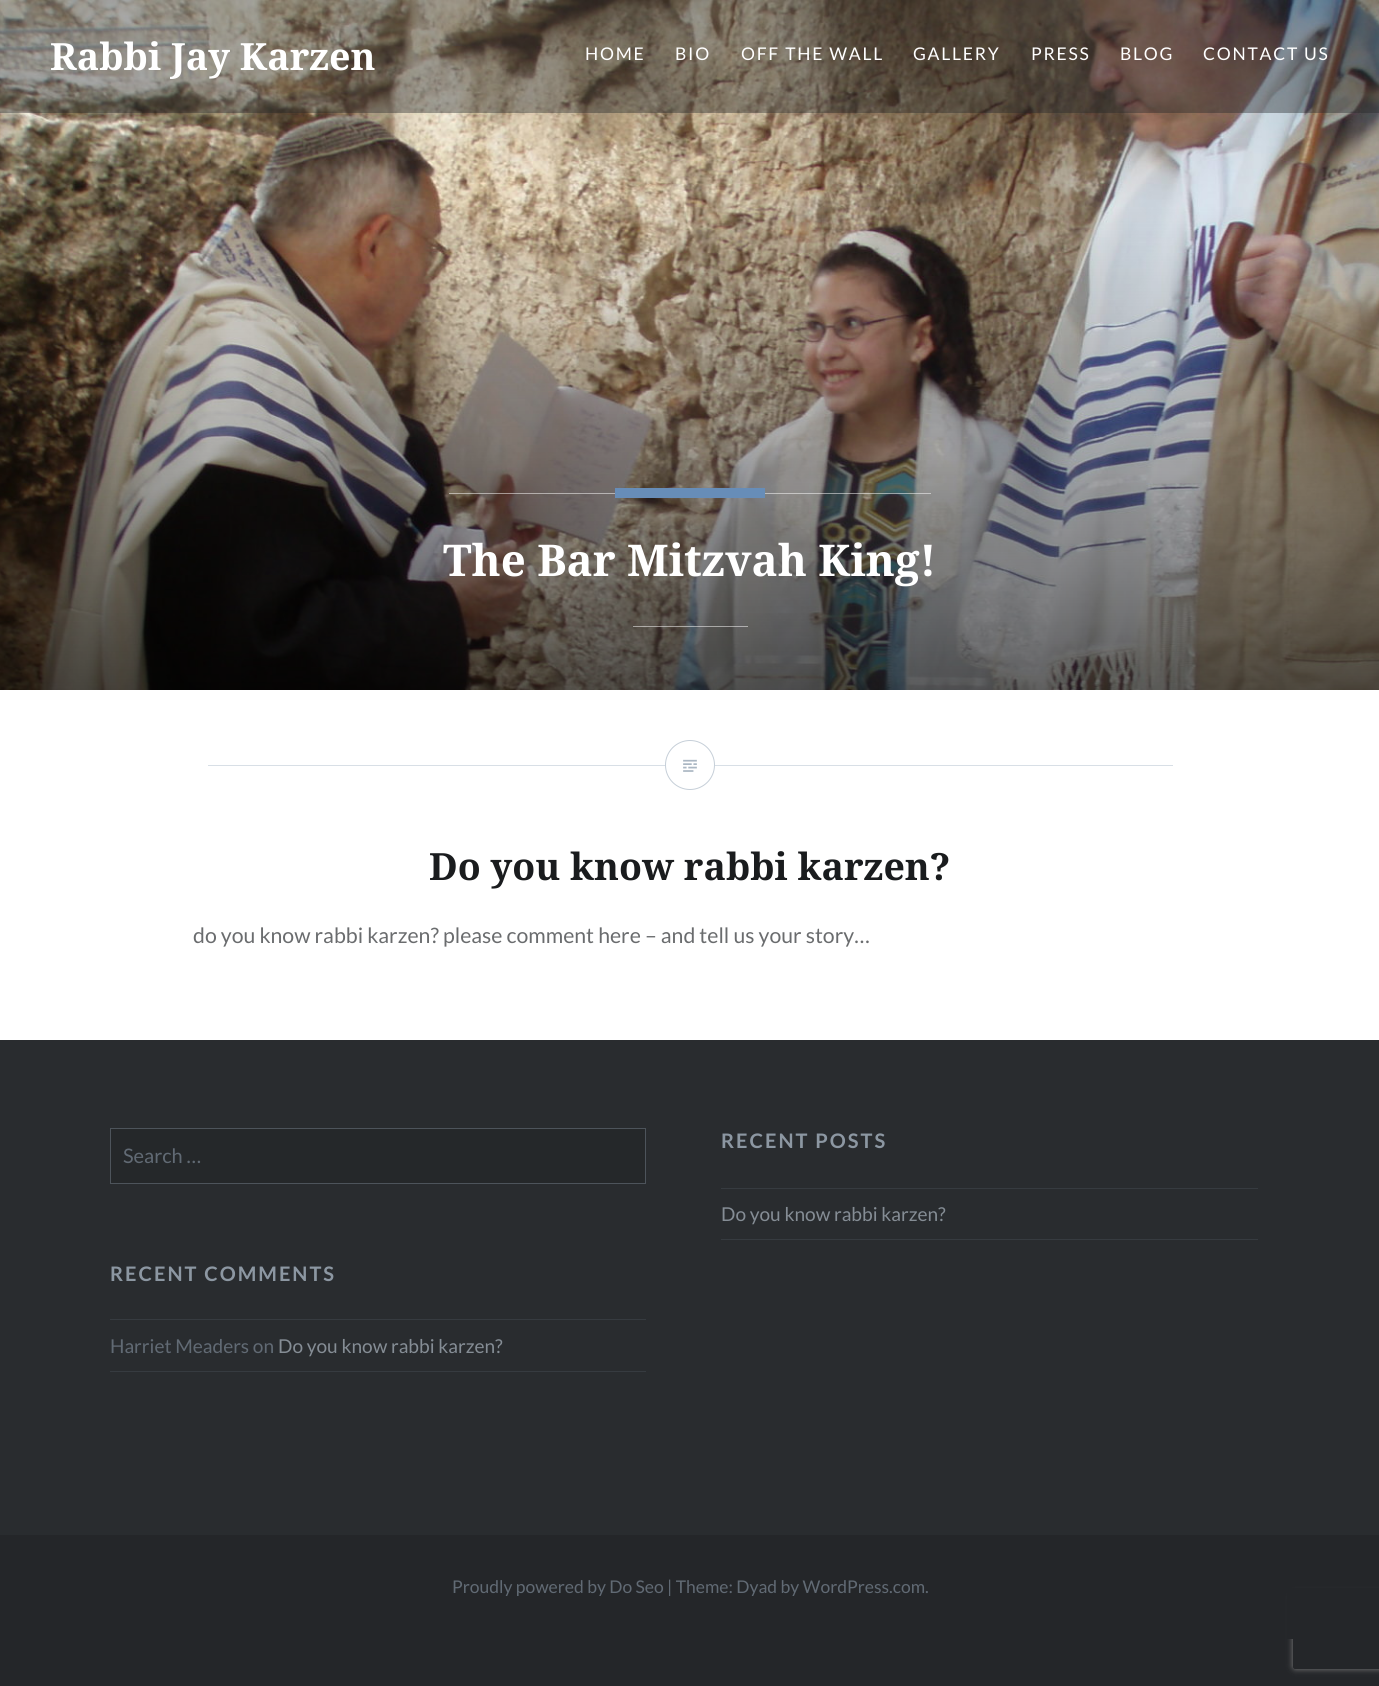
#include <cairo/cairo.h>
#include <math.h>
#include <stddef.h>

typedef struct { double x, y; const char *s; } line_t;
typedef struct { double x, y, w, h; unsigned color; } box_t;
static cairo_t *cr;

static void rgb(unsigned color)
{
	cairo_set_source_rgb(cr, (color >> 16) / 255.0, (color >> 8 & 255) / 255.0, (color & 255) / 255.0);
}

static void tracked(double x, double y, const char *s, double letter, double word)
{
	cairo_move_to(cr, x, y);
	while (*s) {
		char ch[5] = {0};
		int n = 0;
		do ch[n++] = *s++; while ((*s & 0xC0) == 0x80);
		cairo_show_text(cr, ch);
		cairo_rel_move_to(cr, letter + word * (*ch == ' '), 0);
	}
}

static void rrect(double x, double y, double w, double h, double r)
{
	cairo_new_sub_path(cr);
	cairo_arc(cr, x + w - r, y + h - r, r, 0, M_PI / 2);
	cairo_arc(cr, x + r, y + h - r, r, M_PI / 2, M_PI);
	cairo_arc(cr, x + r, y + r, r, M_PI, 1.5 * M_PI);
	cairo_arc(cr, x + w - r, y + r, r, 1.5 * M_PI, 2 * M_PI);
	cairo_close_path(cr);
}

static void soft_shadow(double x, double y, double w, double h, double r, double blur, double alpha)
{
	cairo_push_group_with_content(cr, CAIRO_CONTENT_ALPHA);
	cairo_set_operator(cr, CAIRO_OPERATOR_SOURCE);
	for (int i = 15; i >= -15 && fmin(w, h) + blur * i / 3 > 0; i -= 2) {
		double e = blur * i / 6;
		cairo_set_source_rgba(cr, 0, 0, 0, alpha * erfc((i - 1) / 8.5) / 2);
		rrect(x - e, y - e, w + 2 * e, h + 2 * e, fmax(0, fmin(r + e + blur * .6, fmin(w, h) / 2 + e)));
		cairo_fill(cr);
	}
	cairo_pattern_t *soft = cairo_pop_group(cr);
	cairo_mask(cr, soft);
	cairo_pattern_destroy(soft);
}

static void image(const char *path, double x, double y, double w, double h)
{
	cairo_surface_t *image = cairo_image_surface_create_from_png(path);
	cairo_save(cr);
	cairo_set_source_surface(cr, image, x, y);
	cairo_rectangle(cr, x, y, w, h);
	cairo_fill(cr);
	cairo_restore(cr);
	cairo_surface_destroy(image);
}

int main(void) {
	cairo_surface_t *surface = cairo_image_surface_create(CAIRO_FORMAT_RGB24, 1379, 1686);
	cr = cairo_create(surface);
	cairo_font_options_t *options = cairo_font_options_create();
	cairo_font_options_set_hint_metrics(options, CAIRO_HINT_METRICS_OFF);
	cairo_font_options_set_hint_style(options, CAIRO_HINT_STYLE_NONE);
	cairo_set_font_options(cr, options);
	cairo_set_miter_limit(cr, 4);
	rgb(0x242629);
	cairo_paint(cr);
	rgb(0xffffff);
	cairo_rectangle(cr, 0, 690, 1379, 350);
	cairo_fill(cr);
	image("img/1.png", 0, 0, 1379, 690);
	cairo_set_source_rgba(cr, 0.141, 0.149, 0.161, 0.4);
	cairo_rectangle(cr, 0, 0, 1379, 113);
	cairo_fill(cr);
	cairo_set_source_rgba(cr, 1, 1, 1, 0.5);
	cairo_rectangle(cr, 449, 493, 482, 1);
	cairo_fill(cr);
	rgb(0x678db8);
	cairo_rectangle(cr, 615, 488, 150, 10);
	cairo_fill(cr);
	cairo_set_source_rgba(cr, 1, 1, 1, 0.5);
	cairo_rectangle(cr, 633, 626, 115, 1);
	cairo_fill(cr);
	rgb(0xd8dfe6);
	cairo_rectangle(cr, 208, 765, 965, 1);
	cairo_fill(cr);
	rgb(0xffffff);
	cairo_arc(cr, 690, 765, 24.5, 0, 2 * M_PI);
	cairo_fill_preserve(cr);
	rgb(0xc6cfd8);
	cairo_set_line_width(cr, 1);
	cairo_stroke(cr);
	image("img/2.png", 683, 759, 14, 13);
	rgb(0x292c2f);
	cairo_rectangle(cr, 0, 1040, 1379, 495);
	cairo_fill(cr);
	rgb(0x25282a);
	cairo_rectangle(cr, 110.5, 1128.5, 535, 55);
	cairo_fill_preserve(cr);
	rgb(0x4d545b);
	cairo_stroke(cr);
	{
		static const box_t items[] = {
			{721, 1188, 537, 1, 0x363b40},
			{721, 1239, 537, 1, 0x363b40},
			{110, 1319, 536, 1, 0x363b40},
			{110, 1371, 536, 1, 0x363b40},
		};
		for (size_t i = 0; i < sizeof items / sizeof *items; i++) {
			rgb(items[i].color);
			cairo_rectangle(cr, items[i].x, items[i].y, items[i].w, items[i].h);
			cairo_fill(cr);
		}
	}
	cairo_save(cr);
	cairo_set_fill_rule(cr, CAIRO_FILL_RULE_EVEN_ODD);
	cairo_new_path(cr);
	cairo_move_to(cr, 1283, 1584);
	cairo_line_to(cr, 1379, 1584);
	cairo_line_to(cr, 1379, 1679);
	cairo_line_to(cr, 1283, 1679);
	cairo_close_path(cr);
	cairo_move_to(cr, 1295.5, 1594);
	cairo_line_to(cr, 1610.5, 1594);
	cairo_curve_to(cr, 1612, 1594, 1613, 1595, 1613, 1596.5);
	cairo_line_to(cr, 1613, 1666.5);
	cairo_curve_to(cr, 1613, 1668, 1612, 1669, 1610.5, 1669);
	cairo_line_to(cr, 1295.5, 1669);
	cairo_curve_to(cr, 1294, 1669, 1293, 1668, 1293, 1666.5);
	cairo_line_to(cr, 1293, 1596.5);
	cairo_curve_to(cr, 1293, 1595, 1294, 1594, 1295.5, 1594);
	cairo_close_path(cr);
	cairo_clip(cr);
	rgb(0x808080);
	soft_shadow(1293, 1594, 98, 75, 2.5, 3, 1);
	cairo_restore(cr);
	rgb(0x242629);
	cairo_rectangle(cr, 1287, 1588, 92, 51);
	cairo_fill(cr);
	cairo_select_font_face(cr, "Noto Serif", CAIRO_FONT_SLANT_NORMAL, CAIRO_FONT_WEIGHT_BOLD);
	cairo_set_font_size(cr, 37.5);
	rgb(0xffffff);
	cairo_move_to(cr, 50, 70);
	cairo_show_text(cr, "Rabbi Jay Karzen");
	cairo_select_font_face(cr, "Lato", CAIRO_FONT_SLANT_NORMAL, CAIRO_FONT_WEIGHT_NORMAL);
	cairo_set_font_size(cr, 17.5);
	{
		static const line_t items[] = {
			{585, 60, "HOME"},
			{675, 60, "BIO"},
			{741, 60, "OFF THE WALL"},
			{913, 60, "GALLERY"},
			{1031, 60, "PRESS"},
			{1120, 60, "BLOG"},
			{1203, 60, "CONTACT US"},
		};
		for (size_t i = 0; i < sizeof items / sizeof *items; i++) {
			tracked(items[i].x, items[i].y, items[i].s, 1.75, 0);
		}
	}
	cairo_select_font_face(cr, "Noto Serif", CAIRO_FONT_SLANT_NORMAL, CAIRO_FONT_WEIGHT_BOLD);
	cairo_set_font_size(cr, 43.75);
	cairo_move_to(cr, 443, 576);
	cairo_show_text(cr, "The Bar Mitzvah King!");
	cairo_set_font_size(cr, 37.5);
	rgb(0x1a1c1e);
	cairo_move_to(cr, 429, 880);
	cairo_show_text(cr, "Do you know rabbi karzen?");
	cairo_select_font_face(cr, "Lato", CAIRO_FONT_SLANT_NORMAL, CAIRO_FONT_WEIGHT_NORMAL);
	cairo_set_font_size(cr, 21.25);
	rgb(0x6a6c6e);
	cairo_move_to(cr, 193, 943);
	cairo_show_text(cr, "do you know rabbi karzen? please comment here – and tell us your story…");
	cairo_set_font_size(cr, 20);
	rgb(0x616a74);
	cairo_move_to(cr, 123, 1163);
	cairo_show_text(cr, "Search …");
	cairo_select_font_face(cr, "Lato", CAIRO_FONT_SLANT_NORMAL, CAIRO_FONT_WEIGHT_BOLD);
	rgb(0x8c97a2);
	tracked(721, 1148, "RECENT POSTS", 2, 0);
	cairo_select_font_face(cr, "Lato", CAIRO_FONT_SLANT_NORMAL, CAIRO_FONT_WEIGHT_NORMAL);
	cairo_set_font_size(cr, 19.1);
	rgb(0x858d95);
	cairo_move_to(cr, 721, 1221);
	cairo_show_text(cr, "Do you know rabbi karzen?");
	cairo_select_font_face(cr, "Lato", CAIRO_FONT_SLANT_NORMAL, CAIRO_FONT_WEIGHT_BOLD);
	cairo_set_font_size(cr, 20);
	rgb(0x8c97a2);
	tracked(110, 1281, "RECENT COMMENTS", 2, 0);
	cairo_select_font_face(cr, "Lato", CAIRO_FONT_SLANT_NORMAL, CAIRO_FONT_WEIGHT_NORMAL);
	cairo_set_font_size(cr, 19.1);
	rgb(0x616a74);
	cairo_move_to(cr, 110, 1353);
	cairo_show_text(cr, "Harriet Meaders on");
	rgb(0x858d95);
	cairo_move_to(cr, 278, 1353);
	cairo_show_text(cr, "Do you know rabbi karzen?");
	cairo_set_font_size(cr, 17.5);
	rgb(0x616a74);
	cairo_move_to(cr, 452, 1593);
	cairo_show_text(cr, "Proudly powered by Do Seo | Theme: Dyad by WordPress.com.");
	cairo_surface_write_to_png(surface, "page.png");
	cairo_font_options_destroy(options);
	cairo_destroy(cr);
	cairo_surface_destroy(surface);
	return 0;
}
